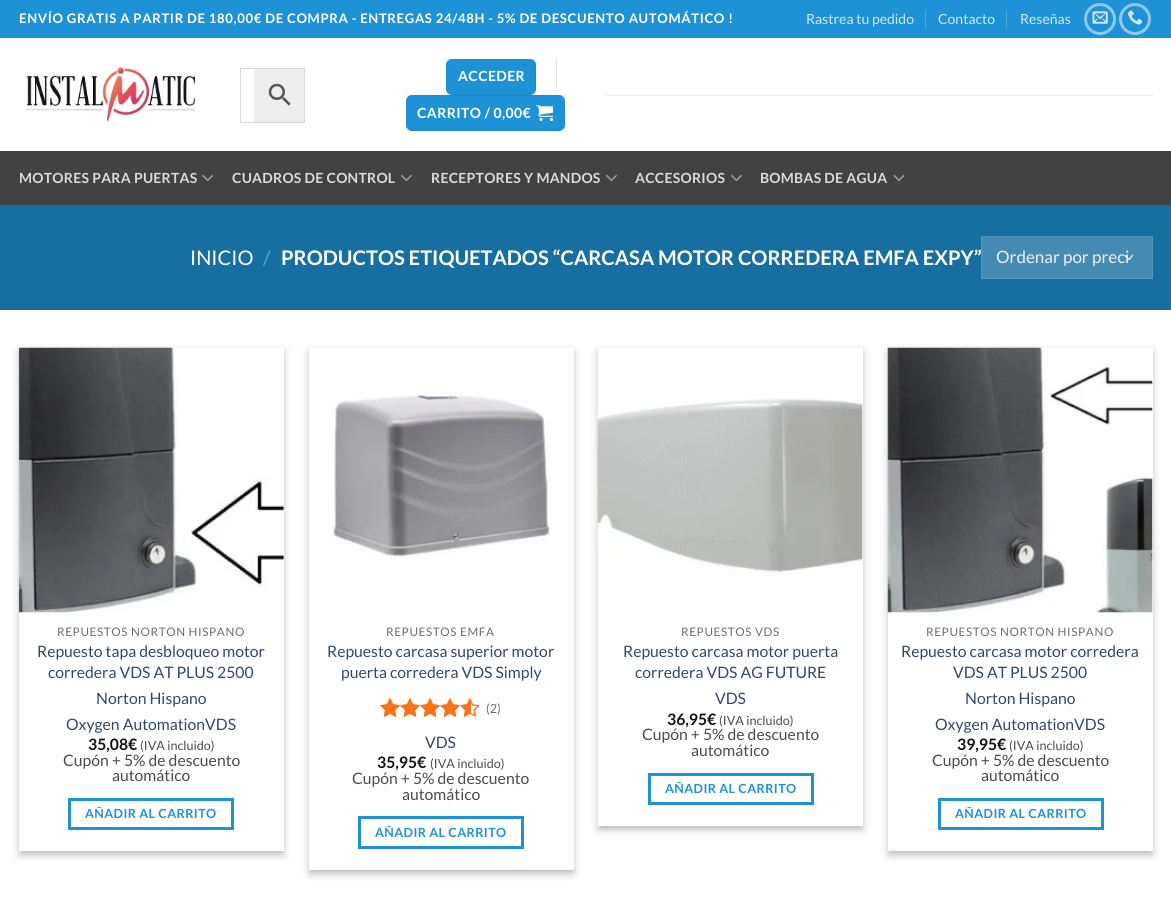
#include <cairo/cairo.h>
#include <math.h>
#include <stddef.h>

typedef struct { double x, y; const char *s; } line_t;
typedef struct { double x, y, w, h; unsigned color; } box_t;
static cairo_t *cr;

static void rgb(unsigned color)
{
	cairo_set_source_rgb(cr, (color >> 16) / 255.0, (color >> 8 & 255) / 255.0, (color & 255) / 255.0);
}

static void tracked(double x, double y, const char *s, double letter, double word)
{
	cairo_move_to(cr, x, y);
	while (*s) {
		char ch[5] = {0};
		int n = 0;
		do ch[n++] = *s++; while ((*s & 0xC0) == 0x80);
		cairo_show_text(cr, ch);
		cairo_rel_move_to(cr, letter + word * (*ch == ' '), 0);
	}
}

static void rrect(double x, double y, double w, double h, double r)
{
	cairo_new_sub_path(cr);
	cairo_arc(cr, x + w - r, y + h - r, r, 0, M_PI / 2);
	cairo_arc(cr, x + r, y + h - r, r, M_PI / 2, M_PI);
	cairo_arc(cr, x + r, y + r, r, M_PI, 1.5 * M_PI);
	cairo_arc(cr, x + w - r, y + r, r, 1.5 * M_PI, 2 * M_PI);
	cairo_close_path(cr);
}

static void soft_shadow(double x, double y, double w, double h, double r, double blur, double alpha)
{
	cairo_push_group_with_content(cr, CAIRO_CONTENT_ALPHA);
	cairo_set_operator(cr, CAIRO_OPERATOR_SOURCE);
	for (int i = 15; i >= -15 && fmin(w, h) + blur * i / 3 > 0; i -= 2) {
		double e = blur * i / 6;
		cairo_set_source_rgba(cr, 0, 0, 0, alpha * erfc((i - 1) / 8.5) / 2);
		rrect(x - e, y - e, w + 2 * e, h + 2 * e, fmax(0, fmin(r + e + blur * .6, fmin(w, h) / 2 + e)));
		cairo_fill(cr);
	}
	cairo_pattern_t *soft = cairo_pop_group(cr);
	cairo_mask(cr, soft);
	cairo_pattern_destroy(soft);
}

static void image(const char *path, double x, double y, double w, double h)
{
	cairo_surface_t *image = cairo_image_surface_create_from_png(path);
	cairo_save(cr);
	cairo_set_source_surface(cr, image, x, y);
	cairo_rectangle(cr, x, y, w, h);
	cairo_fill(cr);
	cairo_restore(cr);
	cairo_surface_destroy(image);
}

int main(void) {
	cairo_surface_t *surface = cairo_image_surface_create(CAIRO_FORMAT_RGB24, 1171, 905);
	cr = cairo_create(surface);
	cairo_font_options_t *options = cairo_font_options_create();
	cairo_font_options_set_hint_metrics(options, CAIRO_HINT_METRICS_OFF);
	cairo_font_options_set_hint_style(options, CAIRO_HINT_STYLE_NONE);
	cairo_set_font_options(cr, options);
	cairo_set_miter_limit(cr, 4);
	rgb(0xffffff);
	cairo_paint(cr);
	{
		static const box_t items[] = {
			{0, 0, 1171, 38, 0x1e92d6},
			{925, 10, 1, 19, 0x4ba8de},
			{1006, 10, 1, 19, 0x4ba8de},
		};
		for (size_t i = 0; i < sizeof items / sizeof *items; i++) {
			rgb(items[i].color);
			cairo_rectangle(cr, items[i].x, items[i].y, items[i].w, items[i].h);
			cairo_fill(cr);
		}
	}
	cairo_arc(cr, 1100, 19, 14.5, 0, 2 * M_PI);
	rgb(0x8fc9eb);
	cairo_set_line_width(cr, 3);
	cairo_stroke(cr);
	image("img/1.png", 1092, 11, 16, 13);
	cairo_arc(cr, 1135, 19, 14.5, 0, 2 * M_PI);
	cairo_stroke(cr);
	image("img/2.png", 1128, 10, 15, 15);
	image("img/3.png", 25, 66, 171, 57);
	rgb(0xededed);
	cairo_rectangle(cr, 253.5, 68.5, 51, 54);
	cairo_fill_preserve(cr);
	rgb(0xd8d8d8);
	cairo_set_line_width(cr, 1);
	cairo_stroke(cr);
	rgb(0xffffff);
	cairo_rectangle(cr, 253, 69, 1, 53);
	cairo_fill(cr);
	cairo_save(cr);
	cairo_rectangle(cr, 240, 68, 14, 55);
	cairo_clip(cr);
	cairo_rectangle(cr, 240.5, 68.5, 17, 54);
	rgb(0xd8d8d8);
	cairo_stroke(cr);
	cairo_restore(cr);
	image("img/4.png", 268, 83, 23, 23);
	rgb(0x1e92d6);
	rrect(446, 59, 90, 36, 6);
	cairo_fill(cr);
	cairo_rectangle(cr, 446.5, 59.5, 89, 35);
	cairo_set_source_rgba(cr, 0, 0, 0, 0.05);
	cairo_stroke(cr);
	rgb(0xe6e6e6);
	cairo_rectangle(cr, 556, 58, 1, 37);
	cairo_fill(cr);
	rgb(0x1e92d6);
	rrect(406, 95, 159, 36, 6);
	cairo_fill(cr);
	cairo_rectangle(cr, 406.5, 95.5, 158, 35);
	cairo_set_source_rgba(cr, 0, 0, 0, 0.05);
	cairo_stroke(cr);
	image("img/5.png", 536, 105, 18, 16);
	rgb(0xededed);
	cairo_rectangle(cr, 605, 95, 548, 1);
	cairo_fill(cr);
	rgb(0x424242);
	cairo_rectangle(cr, 0, 151, 1171, 54);
	cairo_fill(cr);
	image("img/6.png", 202, 174, 12, 8);
	image("img/7.png", 401, 174, 11, 8);
	image("img/7.png", 606, 174, 11, 8);
	image("img/7.png", 731, 174, 11, 8);
	image("img/8.png", 893, 174, 12, 8);
	rgb(0x176ea1);
	cairo_rectangle(cr, 0, 205, 1171, 105);
	cairo_fill(cr);
	rgb(0x000000);
	soft_shadow(19, 351, 265, 504, 0, 4, 0.23);
	soft_shadow(24, 356, 255, 494, 0, 4, 0.16);
	rgb(0xffffff);
	cairo_rectangle(cr, 19, 348, 265, 503);
	cairo_fill(cr);
	image("img/9.png", 18, 347, 266, 266);
	cairo_rectangle(cr, 69.5, 799.5, 163, 29);
	rgb(0x1e92d6);
	cairo_set_line_width(cr, 3);
	cairo_stroke(cr);
	rgb(0x000000);
	soft_shadow(309, 351, 265, 523, 0, 4, 0.23);
	soft_shadow(314, 356, 255, 513, 0, 4, 0.16);
	rgb(0xffffff);
	cairo_rectangle(cr, 309, 348, 265, 522);
	cairo_fill(cr);
	image("img/10.png", 333, 394, 217, 163);
	image("img/11.png", 380, 698, 100, 19);
	image("img/12.png", 380, 698, 91, 19);
	cairo_rectangle(cr, 359.5, 817.5, 163, 30);
	rgb(0x1e92d6);
	cairo_stroke(cr);
	rgb(0x000000);
	soft_shadow(598, 351, 265, 479, 0, 4, 0.23);
	soft_shadow(603, 356, 255, 469, 0, 4, 0.16);
	rgb(0xffffff);
	cairo_rectangle(cr, 598, 348, 265, 478);
	cairo_fill(cr);
	image("img/13.png", 597, 398, 266, 176);
	cairo_rectangle(cr, 649.5, 774.5, 163, 29);
	rgb(0x1e92d6);
	cairo_stroke(cr);
	rgb(0x000000);
	soft_shadow(888, 351, 265, 504, 0, 4, 0.23);
	soft_shadow(893, 356, 255, 494, 0, 4, 0.16);
	rgb(0xffffff);
	cairo_rectangle(cr, 888, 348, 265, 503);
	cairo_fill(cr);
	image("img/14.png", 887, 347, 266, 266);
	cairo_rectangle(cr, 939.5, 799.5, 163, 29);
	rgb(0x1e92d6);
	cairo_stroke(cr);
	cairo_select_font_face(cr, "Lato", CAIRO_FONT_SLANT_NORMAL, CAIRO_FONT_WEIGHT_BOLD);
	cairo_set_font_size(cr, 13.12);
	rgb(0xffffff);
	tracked(19, 23, "ENVÍO GRATIS A PARTIR DE 180,00€ DE COMPRA - ENTREGAS 24/48H - 5% DE DESCUENTO AUTOMÁTICO !", 0.65, 0);
	cairo_select_font_face(cr, "Lato", CAIRO_FONT_SLANT_NORMAL, CAIRO_FONT_WEIGHT_NORMAL);
	cairo_set_font_size(cr, 14);
	rgb(0xd2e9f7);
	{
		static const line_t items[] = {
			{806, 24, "Rastrea tu pedido"},
			{938, 24, "Contacto"},
			{1020, 24, "Reseñas"},
		};
		for (size_t i = 0; i < sizeof items / sizeof *items; i++) {
			cairo_move_to(cr, items[i].x, items[i].y);
			cairo_show_text(cr, items[i].s);
		}
	}
	cairo_select_font_face(cr, "Lato", CAIRO_FONT_SLANT_NORMAL, CAIRO_FONT_WEIGHT_BOLD);
	rgb(0xffffff);
	tracked(458, 81, "ACCEDER", 0.4, 0);
	tracked(417, 118, "CARRITO / 0,00€", 0.4, 0);
	rgb(0xd9d9d9);
	{
		static const line_t items[] = {
			{19, 183, "MOTORES PARA PUERTAS"},
			{232, 183, "CUADROS DE CONTROL"},
			{431, 183, "RECEPTORES Y MANDOS"},
			{635, 183, "ACCESORIOS"},
			{760, 183, "BOMBAS DE AGUA"},
		};
		for (size_t i = 0; i < sizeof items / sizeof *items; i++) {
			tracked(items[i].x, items[i].y, items[i].s, 0.25, 0);
		}
	}
	cairo_select_font_face(cr, "Lato", CAIRO_FONT_SLANT_NORMAL, CAIRO_FONT_WEIGHT_NORMAL);
	cairo_set_font_size(cr, 20.1);
	rgb(0xffffff);
	cairo_move_to(cr, 190, 265);
	cairo_show_text(cr, "INICIO");
	rgb(0x68a1c2);
	cairo_move_to(cr, 263, 265);
	cairo_show_text(cr, "/");
	cairo_select_font_face(cr, "Lato", CAIRO_FONT_SLANT_NORMAL, CAIRO_FONT_WEIGHT_BOLD);
	rgb(0xffffff);
	cairo_move_to(cr, 281, 265);
	cairo_show_text(cr, "PRODUCTOS ETIQUETADOS “CARCASA MOTOR CORREDERA EMFA EXPY”");
	cairo_set_source_rgba(cr, 1, 1, 1, 0.2);
	cairo_rectangle(cr, 981, 236, 172, 43);
	cairo_fill(cr);
	cairo_new_path(cr);
	cairo_move_to(cr, 1125, 255.5);
	cairo_line_to(cr, 1129, 259.5);
	cairo_line_to(cr, 1132.5, 255.5);
	rgb(0xffffff);
	cairo_set_line_width(cr, 1.2);
	cairo_set_line_cap(cr, CAIRO_LINE_CAP_ROUND);
	cairo_set_line_join(cr, CAIRO_LINE_JOIN_ROUND);
	cairo_stroke(cr);
	cairo_rectangle(cr, 981.5, 236.5, 171, 42);
	cairo_set_source_rgba(cr, 1, 1, 1, 0.09);
	cairo_set_line_width(cr, 1);
	cairo_set_line_cap(cr, CAIRO_LINE_CAP_BUTT);
	cairo_set_line_join(cr, CAIRO_LINE_JOIN_MITER);
	cairo_stroke(cr);
	cairo_select_font_face(cr, "Lato", CAIRO_FONT_SLANT_NORMAL, CAIRO_FONT_WEIGHT_NORMAL);
	cairo_set_font_size(cr, 17);
	rgb(0xf1f1f1);
	cairo_move_to(cr, 996, 263);
	cairo_show_text(cr, "Ordenar por preci");
	cairo_set_font_size(cr, 11.75);
	rgb(0x6e6e6e);
	tracked(57, 636, "REPUESTOS NORTON HISPANO", 0.6, 0);
	cairo_set_font_size(cr, 15.75);
	rgb(0x334862);
	{
		static const line_t items[] = {
			{37, 657, "Repuesto tapa desbloqueo motor"},
			{48, 678, "corredera VDS AT PLUS 2500"},
			{96, 704, "Norton Hispano"},
			{66, 730, "Oxygen AutomationVDS"},
		};
		for (size_t i = 0; i < sizeof items / sizeof *items; i++) {
			cairo_move_to(cr, items[i].x, items[i].y);
			cairo_show_text(cr, items[i].s);
		}
	}
	cairo_select_font_face(cr, "Lato", CAIRO_FONT_SLANT_NORMAL, CAIRO_FONT_WEIGHT_BOLD);
	rgb(0x111111);
	cairo_move_to(cr, 88, 750);
	cairo_show_text(cr, "35,08€");
	cairo_select_font_face(cr, "Lato", CAIRO_FONT_SLANT_NORMAL, CAIRO_FONT_WEIGHT_NORMAL);
	cairo_set_font_size(cr, 12.6);
	rgb(0x4a4a4a);
	cairo_move_to(cr, 140, 750);
	cairo_show_text(cr, "(IVA incluido)");
	cairo_set_font_size(cr, 15.75);
	cairo_move_to(cr, 63, 766);
	cairo_show_text(cr, "Cupón + 5% de descuento");
	cairo_move_to(cr, 112, 781);
	cairo_show_text(cr, "automático");
	cairo_select_font_face(cr, "Lato", CAIRO_FONT_SLANT_NORMAL, CAIRO_FONT_WEIGHT_BOLD);
	cairo_set_font_size(cr, 12.6);
	rgb(0x1e92d6);
	tracked(85, 818, "AÑADIR AL CARRITO", 0.4, 0);
	cairo_select_font_face(cr, "Lato", CAIRO_FONT_SLANT_NORMAL, CAIRO_FONT_WEIGHT_NORMAL);
	cairo_set_font_size(cr, 11.75);
	rgb(0x6e6e6e);
	tracked(386, 636, "REPUESTOS EMFA", 0.6, 0);
	cairo_set_font_size(cr, 15.75);
	rgb(0x334862);
	cairo_move_to(cr, 327, 657);
	cairo_show_text(cr, "Repuesto carcasa superior motor");
	cairo_move_to(cr, 341, 678);
	cairo_show_text(cr, "puerta corredera VDS Simply");
	cairo_set_font_size(cr, 12.6);
	rgb(0x6e6e6e);
	cairo_move_to(cr, 486, 713);
	cairo_show_text(cr, "(2)");
	cairo_set_font_size(cr, 15.75);
	rgb(0x334862);
	cairo_move_to(cr, 425, 748);
	cairo_show_text(cr, "VDS");
	cairo_select_font_face(cr, "Lato", CAIRO_FONT_SLANT_NORMAL, CAIRO_FONT_WEIGHT_BOLD);
	rgb(0x111111);
	cairo_move_to(cr, 377, 768);
	cairo_show_text(cr, "35,95€");
	cairo_select_font_face(cr, "Lato", CAIRO_FONT_SLANT_NORMAL, CAIRO_FONT_WEIGHT_NORMAL);
	cairo_set_font_size(cr, 12.6);
	rgb(0x4a4a4a);
	cairo_move_to(cr, 430, 768);
	cairo_show_text(cr, "(IVA incluido)");
	cairo_set_font_size(cr, 15.75);
	cairo_move_to(cr, 352, 784);
	cairo_show_text(cr, "Cupón + 5% de descuento");
	cairo_move_to(cr, 402, 800);
	cairo_show_text(cr, "automático");
	cairo_select_font_face(cr, "Lato", CAIRO_FONT_SLANT_NORMAL, CAIRO_FONT_WEIGHT_BOLD);
	cairo_set_font_size(cr, 12.6);
	rgb(0x1e92d6);
	tracked(375, 837, "AÑADIR AL CARRITO", 0.4, 0);
	cairo_select_font_face(cr, "Lato", CAIRO_FONT_SLANT_NORMAL, CAIRO_FONT_WEIGHT_NORMAL);
	cairo_set_font_size(cr, 11.75);
	rgb(0x6e6e6e);
	tracked(681, 636, "REPUESTOS VDS", 0.6, 0);
	cairo_set_font_size(cr, 15.75);
	rgb(0x334862);
	{
		static const line_t items[] = {
			{623, 657, "Repuesto carcasa motor puerta"},
			{635, 678, "corredera VDS AG FUTURE"},
			{715, 704, "VDS"},
		};
		for (size_t i = 0; i < sizeof items / sizeof *items; i++) {
			cairo_move_to(cr, items[i].x, items[i].y);
			cairo_show_text(cr, items[i].s);
		}
	}
	cairo_select_font_face(cr, "Lato", CAIRO_FONT_SLANT_NORMAL, CAIRO_FONT_WEIGHT_BOLD);
	rgb(0x111111);
	cairo_move_to(cr, 667, 725);
	cairo_show_text(cr, "36,95€");
	cairo_select_font_face(cr, "Lato", CAIRO_FONT_SLANT_NORMAL, CAIRO_FONT_WEIGHT_NORMAL);
	cairo_set_font_size(cr, 12.6);
	rgb(0x4a4a4a);
	cairo_move_to(cr, 719, 725);
	cairo_show_text(cr, "(IVA incluido)");
	cairo_set_font_size(cr, 15.75);
	cairo_move_to(cr, 642, 740);
	cairo_show_text(cr, "Cupón + 5% de descuento");
	cairo_move_to(cr, 691, 756);
	cairo_show_text(cr, "automático");
	cairo_select_font_face(cr, "Lato", CAIRO_FONT_SLANT_NORMAL, CAIRO_FONT_WEIGHT_BOLD);
	cairo_set_font_size(cr, 12.6);
	rgb(0x1e92d6);
	tracked(665, 793, "AÑADIR AL CARRITO", 0.4, 0);
	cairo_select_font_face(cr, "Lato", CAIRO_FONT_SLANT_NORMAL, CAIRO_FONT_WEIGHT_NORMAL);
	cairo_set_font_size(cr, 11.75);
	rgb(0x6e6e6e);
	tracked(926, 636, "REPUESTOS NORTON HISPANO", 0.6, 0);
	cairo_set_font_size(cr, 15.75);
	rgb(0x334862);
	{
		static const line_t items[] = {
			{901, 657, "Repuesto carcasa motor corredera"},
			{953, 678, "VDS AT PLUS 2500"},
			{965, 704, "Norton Hispano"},
			{935, 730, "Oxygen AutomationVDS"},
		};
		for (size_t i = 0; i < sizeof items / sizeof *items; i++) {
			cairo_move_to(cr, items[i].x, items[i].y);
			cairo_show_text(cr, items[i].s);
		}
	}
	cairo_select_font_face(cr, "Lato", CAIRO_FONT_SLANT_NORMAL, CAIRO_FONT_WEIGHT_BOLD);
	rgb(0x111111);
	cairo_move_to(cr, 957, 750);
	cairo_show_text(cr, "39,95€");
	cairo_select_font_face(cr, "Lato", CAIRO_FONT_SLANT_NORMAL, CAIRO_FONT_WEIGHT_NORMAL);
	cairo_set_font_size(cr, 12.6);
	rgb(0x4a4a4a);
	cairo_move_to(cr, 1009, 750);
	cairo_show_text(cr, "(IVA incluido)");
	cairo_set_font_size(cr, 15.75);
	cairo_move_to(cr, 932, 766);
	cairo_show_text(cr, "Cupón + 5% de descuento");
	cairo_move_to(cr, 981, 781);
	cairo_show_text(cr, "automático");
	cairo_select_font_face(cr, "Lato", CAIRO_FONT_SLANT_NORMAL, CAIRO_FONT_WEIGHT_BOLD);
	cairo_set_font_size(cr, 12.6);
	rgb(0x1e92d6);
	tracked(955, 818, "AÑADIR AL CARRITO", 0.4, 0);
	cairo_surface_write_to_png(surface, "page.png");
	cairo_font_options_destroy(options);
	cairo_destroy(cr);
	cairo_surface_destroy(surface);
	return 0;
}
